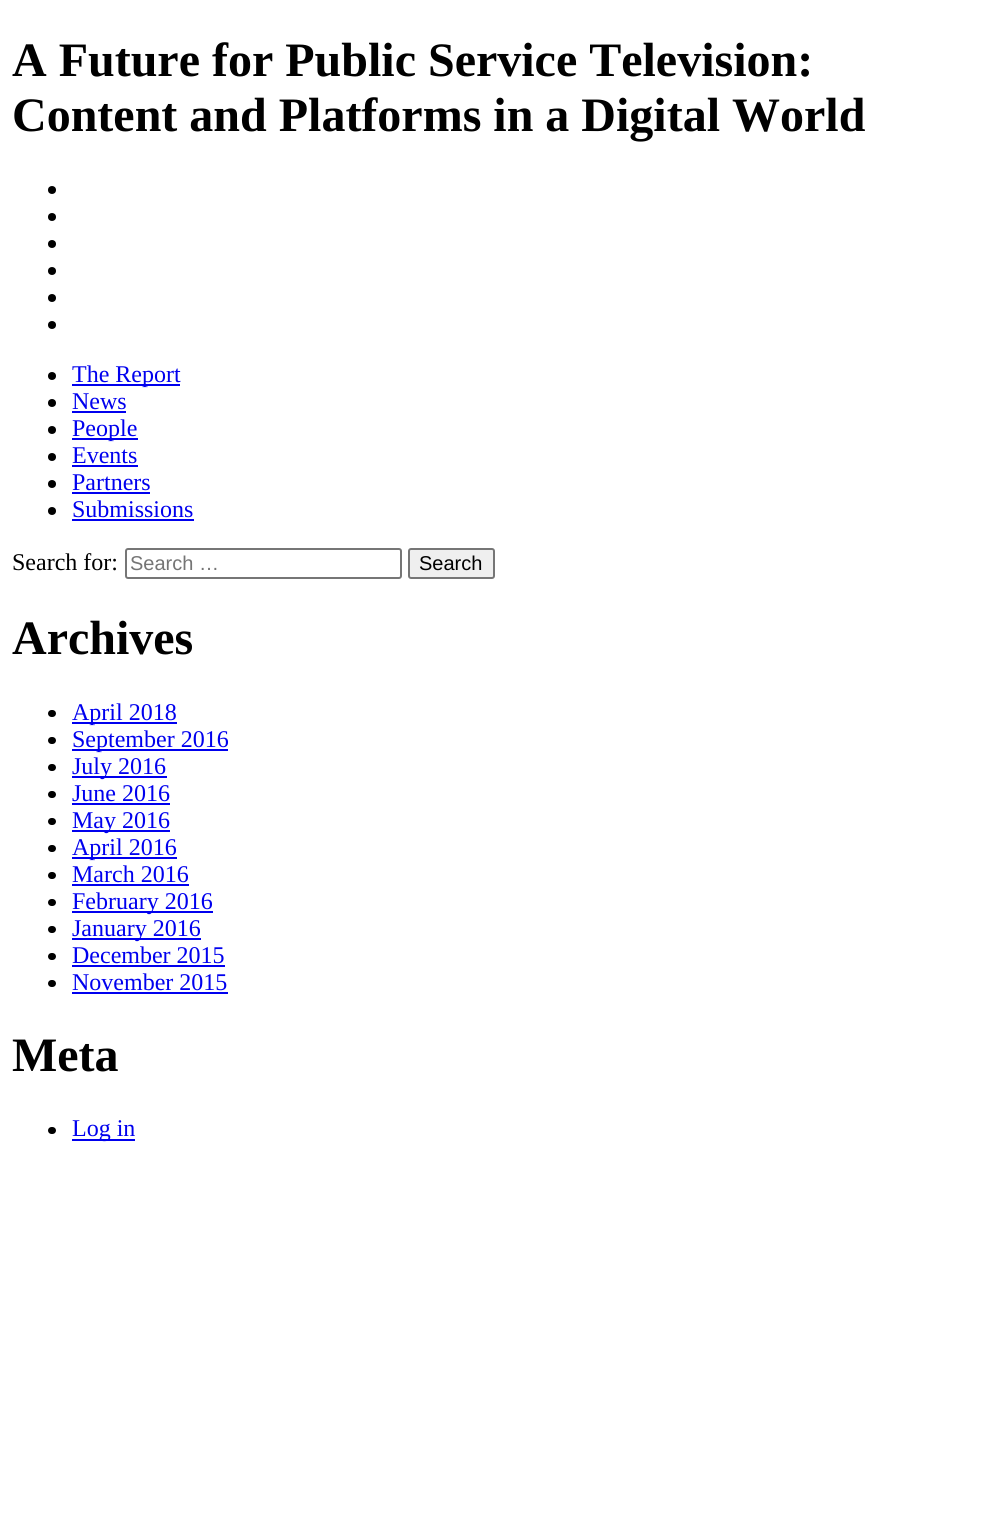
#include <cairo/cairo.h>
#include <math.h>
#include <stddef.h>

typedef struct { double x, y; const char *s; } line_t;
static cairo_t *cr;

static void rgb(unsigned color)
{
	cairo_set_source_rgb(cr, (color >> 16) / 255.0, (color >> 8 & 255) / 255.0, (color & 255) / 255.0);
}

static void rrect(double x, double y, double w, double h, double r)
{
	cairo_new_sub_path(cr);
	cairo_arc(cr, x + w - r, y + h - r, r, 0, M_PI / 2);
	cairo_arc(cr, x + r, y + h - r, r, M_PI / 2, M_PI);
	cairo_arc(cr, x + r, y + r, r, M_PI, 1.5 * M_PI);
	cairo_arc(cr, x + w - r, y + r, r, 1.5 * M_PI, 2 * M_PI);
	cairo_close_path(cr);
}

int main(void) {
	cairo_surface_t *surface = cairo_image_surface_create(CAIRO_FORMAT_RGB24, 994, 1527);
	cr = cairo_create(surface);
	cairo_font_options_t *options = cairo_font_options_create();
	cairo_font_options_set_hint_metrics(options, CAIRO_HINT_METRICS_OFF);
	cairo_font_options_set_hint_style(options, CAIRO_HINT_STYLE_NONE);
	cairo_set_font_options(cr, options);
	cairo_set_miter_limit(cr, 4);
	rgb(0xffffff);
	cairo_paint(cr);
	rgb(0x000000);
	cairo_arc(cr, 52, 190, 4, 0, 2 * M_PI);
	cairo_fill(cr);
	cairo_arc(cr, 52, 217, 4, 0, 2 * M_PI);
	cairo_fill(cr);
	cairo_arc(cr, 52, 244, 4, 0, 2 * M_PI);
	cairo_fill(cr);
	cairo_arc(cr, 52, 271, 4, 0, 2 * M_PI);
	cairo_fill(cr);
	cairo_arc(cr, 52, 298, 4, 0, 2 * M_PI);
	cairo_fill(cr);
	cairo_arc(cr, 52, 325, 4, 0, 2 * M_PI);
	cairo_fill(cr);
	cairo_arc(cr, 52, 376, 4, 0, 2 * M_PI);
	cairo_fill(cr);
	rgb(0x0000ee);
	cairo_rectangle(cr, 72, 384, 108, 2);
	cairo_fill(cr);
	rgb(0x000000);
	cairo_arc(cr, 52, 403, 4, 0, 2 * M_PI);
	cairo_fill(cr);
	rgb(0x0000ee);
	cairo_rectangle(cr, 72, 411, 54, 2);
	cairo_fill(cr);
	rgb(0x000000);
	cairo_arc(cr, 52, 430, 4, 0, 2 * M_PI);
	cairo_fill(cr);
	rgb(0x0000ee);
	cairo_rectangle(cr, 72, 438, 66, 2);
	cairo_fill(cr);
	rgb(0x000000);
	cairo_arc(cr, 52, 457, 4, 0, 2 * M_PI);
	cairo_fill(cr);
	rgb(0x0000ee);
	cairo_rectangle(cr, 72, 465, 66, 2);
	cairo_fill(cr);
	rgb(0x000000);
	cairo_arc(cr, 52, 484, 4, 0, 2 * M_PI);
	cairo_fill(cr);
	rgb(0x0000ee);
	cairo_rectangle(cr, 72, 492, 78, 2);
	cairo_fill(cr);
	rgb(0x000000);
	cairo_arc(cr, 52, 511, 4, 0, 2 * M_PI);
	cairo_fill(cr);
	rgb(0x0000ee);
	cairo_rectangle(cr, 72, 519, 122, 2);
	cairo_fill(cr);
	rrect(126, 549, 275, 29, 2);
	rgb(0x767676);
	cairo_stroke(cr);
	rgb(0xefefef);
	rrect(409, 549, 85, 29, 2);
	cairo_fill_preserve(cr);
	rgb(0x767676);
	cairo_stroke(cr);
	rgb(0x000000);
	rrect(48, 710, 8, 7, 3.5);
	cairo_fill(cr);
	rgb(0x0000ee);
	cairo_rectangle(cr, 72, 722, 105, 2);
	cairo_fill(cr);
	rgb(0x000000);
	rrect(48, 737, 8, 7, 3.5);
	cairo_fill(cr);
	rgb(0x0000ee);
	cairo_rectangle(cr, 72, 749, 156, 2);
	cairo_fill(cr);
	rgb(0x000000);
	rrect(48, 764, 8, 7, 3.5);
	cairo_fill(cr);
	rgb(0x0000ee);
	cairo_rectangle(cr, 72, 776, 95, 2);
	cairo_fill(cr);
	rgb(0x000000);
	rrect(48, 791, 8, 7, 3.5);
	cairo_fill(cr);
	rgb(0x0000ee);
	cairo_rectangle(cr, 72, 803, 98, 2);
	cairo_fill(cr);
	rgb(0x000000);
	rrect(48, 818, 8, 7, 3.5);
	cairo_fill(cr);
	rgb(0x0000ee);
	cairo_rectangle(cr, 72, 830, 98, 2);
	cairo_fill(cr);
	rgb(0x000000);
	rrect(48, 845, 8, 7, 3.5);
	cairo_fill(cr);
	rgb(0x0000ee);
	cairo_rectangle(cr, 72, 857, 105, 2);
	cairo_fill(cr);
	rgb(0x000000);
	rrect(48, 872, 8, 7, 3.5);
	cairo_fill(cr);
	rgb(0x0000ee);
	cairo_rectangle(cr, 72, 884, 117, 2);
	cairo_fill(cr);
	rgb(0x000000);
	rrect(48, 899, 8, 7, 3.5);
	cairo_fill(cr);
	rgb(0x0000ee);
	cairo_rectangle(cr, 72, 911, 141, 2);
	cairo_fill(cr);
	rgb(0x000000);
	rrect(48, 926, 8, 7, 3.5);
	cairo_fill(cr);
	rgb(0x0000ee);
	cairo_rectangle(cr, 72, 938, 129, 2);
	cairo_fill(cr);
	rgb(0x000000);
	rrect(48, 953, 8, 7, 3.5);
	cairo_fill(cr);
	rgb(0x0000ee);
	cairo_rectangle(cr, 72, 965, 153, 2);
	cairo_fill(cr);
	rgb(0x000000);
	rrect(48, 980, 8, 7, 3.5);
	cairo_fill(cr);
	rgb(0x0000ee);
	cairo_rectangle(cr, 72, 992, 156, 2);
	cairo_fill(cr);
	rgb(0x000000);
	rrect(48, 1127, 8, 7, 3.5);
	cairo_fill(cr);
	rgb(0x0000ee);
	cairo_rectangle(cr, 72, 1139, 63, 2);
	cairo_fill(cr);
	cairo_select_font_face(cr, "Liberation Serif", CAIRO_FONT_SLANT_NORMAL, CAIRO_FONT_WEIGHT_BOLD);
	cairo_set_font_size(cr, 48);
	rgb(0x000000);
	cairo_move_to(cr, 12, 76);
	cairo_show_text(cr, "A Future for Public Service Television:");
	cairo_move_to(cr, 12, 131);
	cairo_show_text(cr, "Content and Platforms in a Digital World");
	cairo_select_font_face(cr, "Liberation Serif", CAIRO_FONT_SLANT_NORMAL, CAIRO_FONT_WEIGHT_NORMAL);
	cairo_set_font_size(cr, 24);
	rgb(0x0000ee);
	{
		static const line_t items[] = {
			{72, 382, "The Report"},
			{72, 409, "News"},
			{72, 436, "People"},
			{72, 463, "Events"},
			{72, 490, "Partners"},
			{72, 517, "Submissions"},
		};
		for (size_t i = 0; i < sizeof items / sizeof *items; i++) {
			cairo_move_to(cr, items[i].x, items[i].y);
			cairo_show_text(cr, items[i].s);
		}
	}
	rgb(0x000000);
	cairo_move_to(cr, 12, 570);
	cairo_show_text(cr, "Search for:");
	cairo_select_font_face(cr, "Liberation Sans", CAIRO_FONT_SLANT_NORMAL, CAIRO_FONT_WEIGHT_NORMAL);
	cairo_set_font_size(cr, 20);
	rgb(0x757575);
	cairo_move_to(cr, 130, 570);
	cairo_show_text(cr, "Search …");
	rgb(0x000000);
	cairo_move_to(cr, 419, 570);
	cairo_show_text(cr, "Search");
	cairo_select_font_face(cr, "Liberation Serif", CAIRO_FONT_SLANT_NORMAL, CAIRO_FONT_WEIGHT_BOLD);
	cairo_set_font_size(cr, 48);
	cairo_move_to(cr, 12, 654);
	cairo_show_text(cr, "Archives");
	cairo_select_font_face(cr, "Liberation Serif", CAIRO_FONT_SLANT_NORMAL, CAIRO_FONT_WEIGHT_NORMAL);
	cairo_set_font_size(cr, 24);
	rgb(0x0000ee);
	{
		static const line_t items[] = {
			{72, 720, "April 2018"},
			{72, 747, "September 2016"},
			{72, 774, "July 2016"},
			{72, 801, "June 2016"},
			{72, 828, "May 2016"},
			{72, 855, "April 2016"},
			{72, 882, "March 2016"},
			{72, 909, "February 2016"},
			{72, 936, "January 2016"},
			{72, 963, "December 2015"},
			{72, 990, "November 2015"},
		};
		for (size_t i = 0; i < sizeof items / sizeof *items; i++) {
			cairo_move_to(cr, items[i].x, items[i].y);
			cairo_show_text(cr, items[i].s);
		}
	}
	cairo_select_font_face(cr, "Liberation Serif", CAIRO_FONT_SLANT_NORMAL, CAIRO_FONT_WEIGHT_BOLD);
	cairo_set_font_size(cr, 48);
	rgb(0x000000);
	cairo_move_to(cr, 12, 1071);
	cairo_show_text(cr, "Meta");
	cairo_select_font_face(cr, "Liberation Serif", CAIRO_FONT_SLANT_NORMAL, CAIRO_FONT_WEIGHT_NORMAL);
	cairo_set_font_size(cr, 24);
	rgb(0x0000ee);
	cairo_move_to(cr, 72, 1136);
	cairo_show_text(cr, "Log in");
	cairo_surface_write_to_png(surface, "page.png");
	cairo_font_options_destroy(options);
	cairo_destroy(cr);
	cairo_surface_destroy(surface);
	return 0;
}
